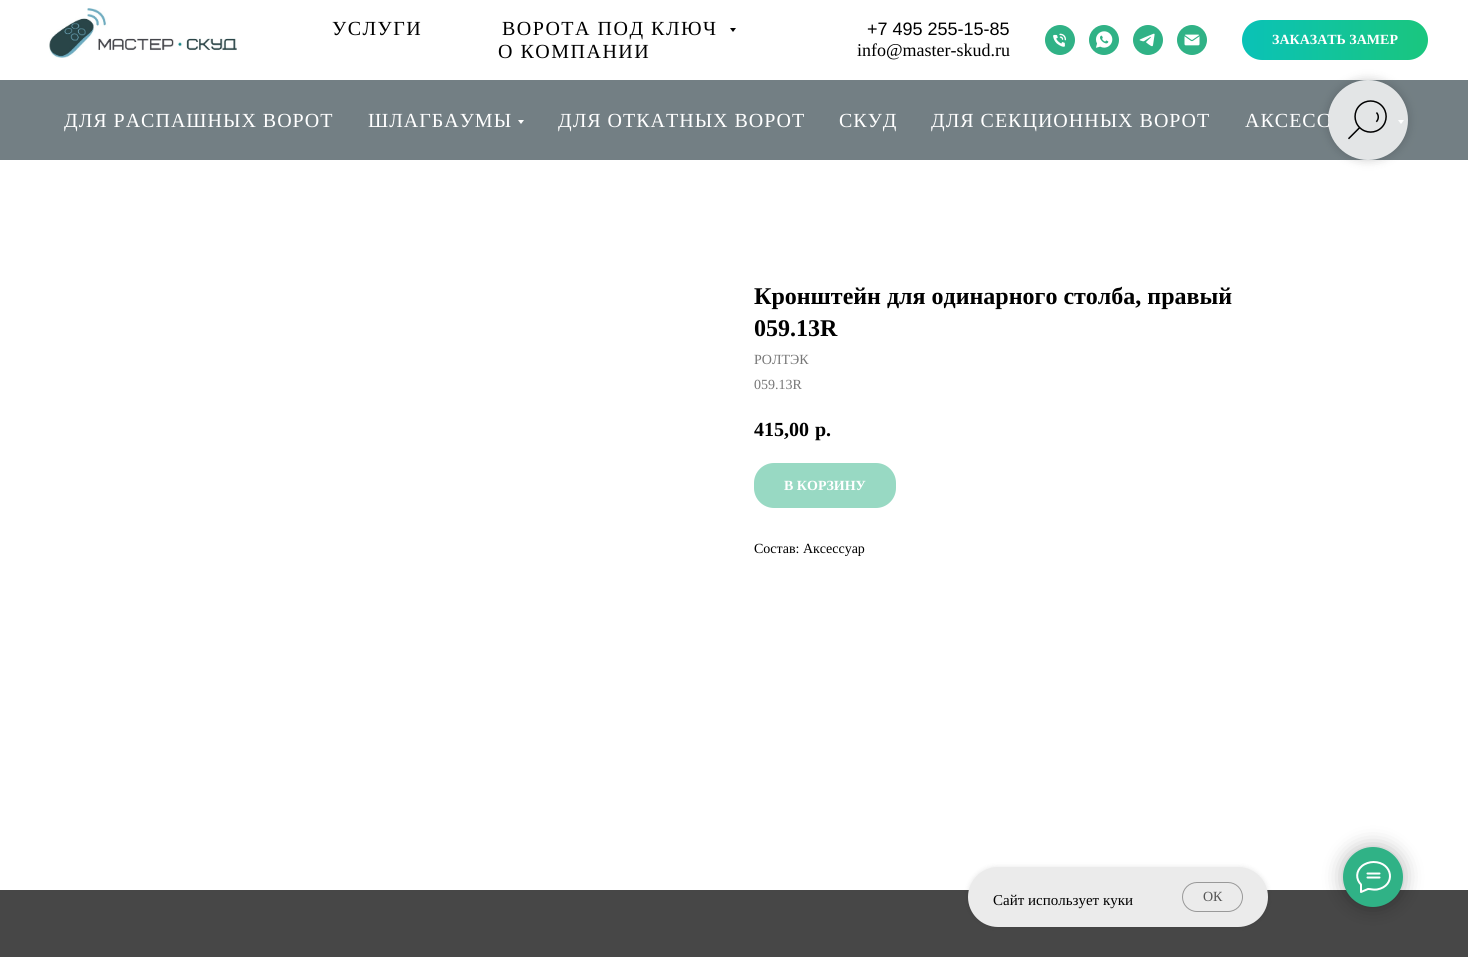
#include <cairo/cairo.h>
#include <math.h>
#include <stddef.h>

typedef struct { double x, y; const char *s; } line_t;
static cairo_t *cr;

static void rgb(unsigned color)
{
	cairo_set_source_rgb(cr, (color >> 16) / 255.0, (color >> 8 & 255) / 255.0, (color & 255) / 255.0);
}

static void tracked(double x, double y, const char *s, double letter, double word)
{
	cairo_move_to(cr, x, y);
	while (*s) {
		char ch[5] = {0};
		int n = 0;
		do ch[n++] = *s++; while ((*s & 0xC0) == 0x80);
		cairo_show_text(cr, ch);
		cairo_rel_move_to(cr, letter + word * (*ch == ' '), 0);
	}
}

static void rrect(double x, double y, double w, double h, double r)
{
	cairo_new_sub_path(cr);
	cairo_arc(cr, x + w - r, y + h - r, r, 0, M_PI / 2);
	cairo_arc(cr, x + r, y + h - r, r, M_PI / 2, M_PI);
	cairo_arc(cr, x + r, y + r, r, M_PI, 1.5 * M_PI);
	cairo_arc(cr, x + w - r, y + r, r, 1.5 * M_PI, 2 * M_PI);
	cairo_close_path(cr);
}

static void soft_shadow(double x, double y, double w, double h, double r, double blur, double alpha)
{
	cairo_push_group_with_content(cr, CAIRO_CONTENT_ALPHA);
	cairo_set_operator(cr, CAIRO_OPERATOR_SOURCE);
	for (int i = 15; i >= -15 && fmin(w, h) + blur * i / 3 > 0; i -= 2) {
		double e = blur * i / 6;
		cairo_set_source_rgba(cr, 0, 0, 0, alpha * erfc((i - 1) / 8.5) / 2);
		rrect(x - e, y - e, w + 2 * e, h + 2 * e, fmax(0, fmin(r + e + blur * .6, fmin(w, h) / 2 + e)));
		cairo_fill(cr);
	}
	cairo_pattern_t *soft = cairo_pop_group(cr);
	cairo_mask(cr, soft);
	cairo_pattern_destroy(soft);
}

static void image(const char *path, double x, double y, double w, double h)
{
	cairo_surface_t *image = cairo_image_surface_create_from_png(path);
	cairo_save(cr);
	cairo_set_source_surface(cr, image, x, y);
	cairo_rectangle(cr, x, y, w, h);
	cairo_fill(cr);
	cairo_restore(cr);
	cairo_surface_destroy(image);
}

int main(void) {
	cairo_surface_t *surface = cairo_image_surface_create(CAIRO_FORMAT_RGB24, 1468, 957);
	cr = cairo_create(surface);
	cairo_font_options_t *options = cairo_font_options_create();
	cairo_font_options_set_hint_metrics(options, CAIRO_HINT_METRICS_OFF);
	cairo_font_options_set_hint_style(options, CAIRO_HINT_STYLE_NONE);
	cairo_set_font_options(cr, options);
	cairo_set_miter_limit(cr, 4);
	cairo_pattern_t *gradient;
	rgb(0xffffff);
	cairo_paint(cr);
	image("img/1.png", 49, 8, 188, 50);
	rgb(0x000000);
	cairo_new_path(cr);
	cairo_move_to(cr, 730, 28);
	cairo_line_to(cr, 736, 28);
	cairo_line_to(cr, 733, 32);
	cairo_close_path(cr);
	cairo_fill(cr);
	image("img/2.png", 1045, 25, 30, 30);
	image("img/3.png", 1089, 25, 30, 30);
	image("img/4.png", 1133, 25, 30, 30);
	image("img/5.png", 1177, 25, 30, 30);
	gradient = cairo_pattern_create_linear(1428, 40, 1242, 40);
	cairo_pattern_add_color_stop_rgba(gradient, 0, 0.102, 0.776, 0.494, 1);
	cairo_pattern_add_color_stop_rgba(gradient, 1, 0.039, 0.761, 0.718, 1);
	cairo_set_source(cr, gradient);
	cairo_pattern_destroy(gradient);
	rrect(1242, 20, 186, 40, 20);
	cairo_fill(cr);
	rgb(0x737f84);
	cairo_rectangle(cr, 0, 80, 1468, 80);
	cairo_fill(cr);
	rgb(0xffffff);
	cairo_new_path(cr);
	cairo_move_to(cr, 518, 120);
	cairo_line_to(cr, 524, 120);
	cairo_line_to(cr, 521, 124);
	cairo_close_path(cr);
	cairo_fill(cr);
	cairo_new_path(cr);
	cairo_move_to(cr, 1398, 120);
	cairo_line_to(cr, 1404, 120);
	cairo_line_to(cr, 1401, 124);
	cairo_close_path(cr);
	cairo_fill(cr);
	cairo_save(cr);
	cairo_set_fill_rule(cr, CAIRO_FILL_RULE_EVEN_ODD);
	cairo_new_path(cr);
	cairo_move_to(cr, 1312, 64);
	cairo_line_to(cr, 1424, 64);
	cairo_line_to(cr, 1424, 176);
	cairo_line_to(cr, 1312, 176);
	cairo_close_path(cr);
	cairo_move_to(cr, 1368, 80);
	cairo_curve_to(cr, 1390, 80, 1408, 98, 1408, 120);
	cairo_curve_to(cr, 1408, 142, 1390, 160, 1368, 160);
	cairo_curve_to(cr, 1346, 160, 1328, 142, 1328, 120);
	cairo_curve_to(cr, 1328, 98, 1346, 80, 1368, 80);
	cairo_close_path(cr);
	cairo_clip(cr);
	rgb(0x000000);
	soft_shadow(1328, 80, 80, 80, 40, 5, 0.2);
	cairo_restore(cr);
	rgb(0x98d9c3);
	rrect(754, 463, 142, 45, 20);
	cairo_fill(cr);
	rgb(0x474747);
	cairo_rectangle(cr, 0, 890, 1468, 67);
	cairo_fill(cr);
	rgb(0x000000);
	soft_shadow(1343, 847, 60, 60, 30, 10, 0.3);
	rgb(0x30b286);
	cairo_arc(cr, 1373, 877, 30, 0, 2 * M_PI);
	cairo_fill(cr);
	cairo_new_path(cr);
	cairo_move_to(cr, 1367.5, 873.5);
	cairo_line_to(cr, 1379.5, 873.5);
	cairo_move_to(cr, 1367.5, 877.5);
	cairo_line_to(cr, 1379.5, 877.5);
	cairo_move_to(cr, 1361, 884.5);
	cairo_curve_to(cr, 1355.5, 879, 1356, 871, 1362, 866);
	cairo_curve_to(cr, 1365, 863.5, 1369.5, 862, 1373.5, 862);
	cairo_curve_to(cr, 1393, 862, 1396.5, 886, 1377, 889.5);
	cairo_curve_to(cr, 1373, 890, 1371.5, 889, 1368, 889);
	cairo_line_to(cr, 1361, 892);
	cairo_line_to(cr, 1361, 885);
	cairo_close_path(cr);
	rgb(0xffffff);
	cairo_set_line_cap(cr, CAIRO_LINE_CAP_ROUND);
	cairo_set_line_join(cr, CAIRO_LINE_JOIN_ROUND);
	cairo_stroke(cr);
	rgb(0x000000);
	soft_shadow(968, 867, 300, 60, 30, 2.5, 0.1);
	rgb(0xebebeb);
	rrect(968, 867, 300, 60, 30);
	cairo_fill(cr);
	rrect(1182.5, 882.5, 60, 29, 14.5);
	rgb(0x999999);
	cairo_set_line_width(cr, 1);
	cairo_set_line_cap(cr, CAIRO_LINE_CAP_BUTT);
	cairo_set_line_join(cr, CAIRO_LINE_JOIN_MITER);
	cairo_stroke(cr);
	cairo_select_font_face(cr, "Liberation Serif", CAIRO_FONT_SLANT_NORMAL, CAIRO_FONT_WEIGHT_NORMAL);
	cairo_set_font_size(cr, 20);
	rgb(0x000000);
	{
		static const line_t items[] = {
			{332, 35, "УСЛУГИ"},
			{502, 35, "ВОРОТА ПОД КЛЮЧ"},
			{498, 58, "О КОМПАНИИ"},
		};
		for (size_t i = 0; i < sizeof items / sizeof *items; i++) {
			tracked(items[i].x, items[i].y, items[i].s, 1.5, 0);
		}
	}
	cairo_select_font_face(cr, "Liberation Sans", CAIRO_FONT_SLANT_NORMAL, CAIRO_FONT_WEIGHT_NORMAL);
	cairo_set_font_size(cr, 18);
	cairo_move_to(cr, 867, 35);
	cairo_show_text(cr, "+7 495 255-15-85");
	cairo_select_font_face(cr, "Liberation Serif", CAIRO_FONT_SLANT_NORMAL, CAIRO_FONT_WEIGHT_NORMAL);
	cairo_move_to(cr, 857, 56);
	cairo_show_text(cr, "info@master-skud.ru");
	cairo_select_font_face(cr, "Liberation Serif", CAIRO_FONT_SLANT_NORMAL, CAIRO_FONT_WEIGHT_BOLD);
	cairo_set_font_size(cr, 14);
	rgb(0xffffff);
	cairo_move_to(cr, 1272, 44);
	cairo_show_text(cr, "ЗАКАЗАТЬ ЗАМЕР");
	cairo_select_font_face(cr, "Liberation Serif", CAIRO_FONT_SLANT_NORMAL, CAIRO_FONT_WEIGHT_NORMAL);
	cairo_set_font_size(cr, 20);
	{
		static const line_t items[] = {
			{64, 127, "ДЛЯ РАСПАШНЫХ ВОРОТ"},
			{368, 127, "ШЛАГБАУМЫ"},
			{558, 127, "ДЛЯ ОТКАТНЫХ ВОРОТ"},
			{839, 127, "СКУД"},
			{931, 127, "ДЛЯ СЕКЦИОННЫХ ВОРОТ"},
			{1245, 127, "АКСЕСС"},
		};
		for (size_t i = 0; i < sizeof items / sizeof *items; i++) {
			tracked(items[i].x, items[i].y, items[i].s, 1, 0);
		}
	}
	cairo_set_source_rgba(cr, 1, 1, 1, 0.8);
	cairo_new_path(cr);
	cairo_arc(cr, 1368, 120, 40, 0, 2 * M_PI);
	cairo_fill(cr);
	image("img/6.png", 1348, 100, 39, 40);
	cairo_select_font_face(cr, "Liberation Serif", CAIRO_FONT_SLANT_NORMAL, CAIRO_FONT_WEIGHT_BOLD);
	cairo_set_font_size(cr, 24);
	rgb(0x000000);
	cairo_move_to(cr, 754, 304);
	cairo_show_text(cr, "Кронштейн для одинарного столба, правый");
	cairo_move_to(cr, 754, 336);
	cairo_show_text(cr, "059.13R");
	cairo_select_font_face(cr, "Liberation Serif", CAIRO_FONT_SLANT_NORMAL, CAIRO_FONT_WEIGHT_NORMAL);
	cairo_set_font_size(cr, 14);
	rgb(0x777777);
	cairo_move_to(cr, 754, 364);
	cairo_show_text(cr, "РОЛТЭК");
	cairo_move_to(cr, 754, 389);
	cairo_show_text(cr, "059.13R");
	cairo_select_font_face(cr, "Liberation Serif", CAIRO_FONT_SLANT_NORMAL, CAIRO_FONT_WEIGHT_BOLD);
	cairo_set_font_size(cr, 20);
	rgb(0x000000);
	cairo_move_to(cr, 754, 436);
	cairo_show_text(cr, "415,00");
	cairo_move_to(cr, 815, 436);
	cairo_show_text(cr, "р.");
	cairo_set_font_size(cr, 14);
	rgb(0xffffff);
	cairo_move_to(cr, 784, 490);
	cairo_show_text(cr, "В КОРЗИНУ");
	cairo_select_font_face(cr, "Liberation Serif", CAIRO_FONT_SLANT_NORMAL, CAIRO_FONT_WEIGHT_NORMAL);
	rgb(0x000000);
	cairo_move_to(cr, 754, 553);
	cairo_show_text(cr, "Состав: Аксессуар");
	cairo_set_font_size(cr, 15);
	cairo_move_to(cr, 993, 905);
	cairo_show_text(cr, "Сайт использует куки");
	cairo_set_font_size(cr, 14);
	rgb(0x555555);
	cairo_move_to(cr, 1203, 901);
	cairo_show_text(cr, "ОК");
	cairo_surface_write_to_png(surface, "page.png");
	cairo_font_options_destroy(options);
	cairo_destroy(cr);
	cairo_surface_destroy(surface);
	return 0;
}
